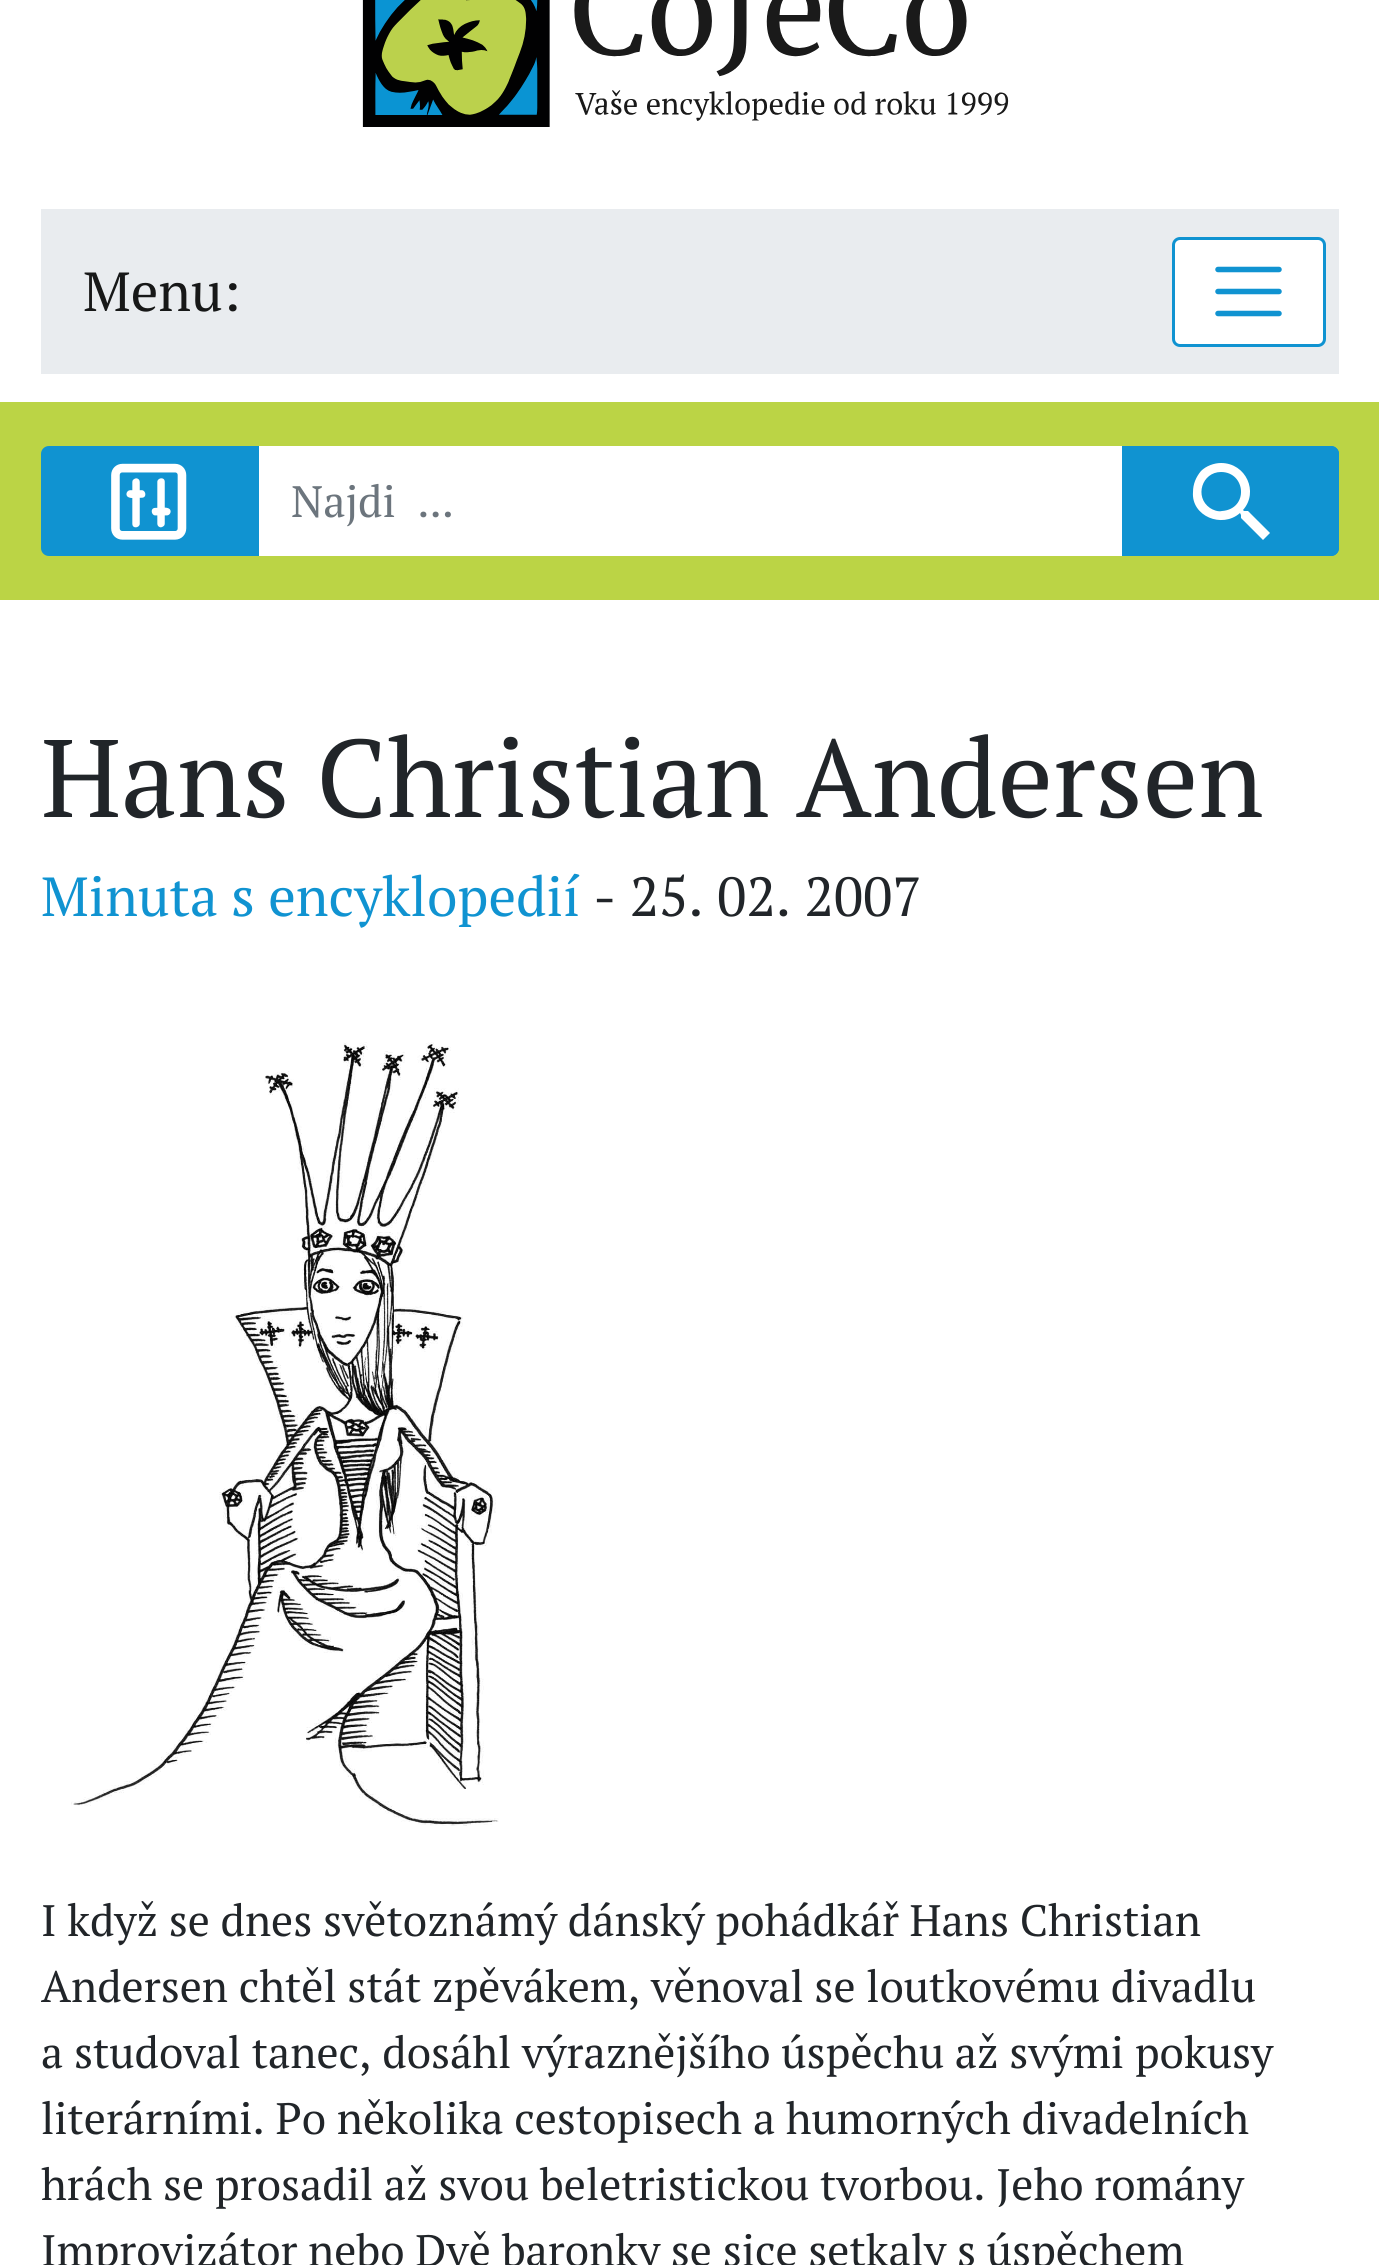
#include <cairo/cairo.h>
#include <math.h>
#include <stddef.h>

typedef struct { double x, y; const char *s; } line_t;
static cairo_t *cr;

static void rgb(unsigned color)
{
	cairo_set_source_rgb(cr, (color >> 16) / 255.0, (color >> 8 & 255) / 255.0, (color & 255) / 255.0);
}

static void rrect(double x, double y, double w, double h, double r)
{
	cairo_new_sub_path(cr);
	cairo_arc(cr, x + w - r, y + h - r, r, 0, M_PI / 2);
	cairo_arc(cr, x + r, y + h - r, r, M_PI / 2, M_PI);
	cairo_arc(cr, x + r, y + r, r, M_PI, 1.5 * M_PI);
	cairo_arc(cr, x + w - r, y + r, r, 1.5 * M_PI, 2 * M_PI);
	cairo_close_path(cr);
}

static void image(const char *path, double x, double y, double w, double h)
{
	cairo_surface_t *image = cairo_image_surface_create_from_png(path);
	cairo_save(cr);
	cairo_set_source_surface(cr, image, x, y);
	cairo_rectangle(cr, x, y, w, h);
	cairo_fill(cr);
	cairo_restore(cr);
	cairo_surface_destroy(image);
}

int main(void) {
	cairo_surface_t *surface = cairo_image_surface_create(CAIRO_FORMAT_RGB24, 1379, 2265);
	cr = cairo_create(surface);
	cairo_font_options_t *options = cairo_font_options_create();
	cairo_font_options_set_hint_metrics(options, CAIRO_HINT_METRICS_OFF);
	cairo_font_options_set_hint_style(options, CAIRO_HINT_STYLE_NONE);
	cairo_set_font_options(cr, options);
	cairo_set_miter_limit(cr, 4);
	rgb(0xffffff);
	cairo_paint(cr);
	image("img/1.png", 362, 0, 647, 127);
	rgb(0xe9ecef);
	cairo_rectangle(cr, 41, 209, 1298, 165);
	cairo_fill(cr);
	rgb(0xffffff);
	rrect(1173.5, 238.5, 151, 107, 6.5);
	cairo_fill_preserve(cr);
	rgb(0x1093d1);
	cairo_set_line_width(cr, 3);
	cairo_stroke(cr);
	cairo_new_path(cr);
	cairo_move_to(cr, 1218, 269.5);
	cairo_line_to(cr, 1279, 269.5);
	cairo_move_to(cr, 1218, 291.5);
	cairo_line_to(cr, 1279, 291.5);
	cairo_move_to(cr, 1218, 313.5);
	cairo_line_to(cr, 1279, 313.5);
	cairo_set_line_width(cr, 5.5);
	cairo_set_line_cap(cr, CAIRO_LINE_CAP_ROUND);
	cairo_stroke(cr);
	rgb(0xbbd445);
	cairo_rectangle(cr, 0, 402, 1379, 198);
	cairo_fill(cr);
	rgb(0x1093d1);
	cairo_new_path(cr);
	cairo_move_to(cr, 49, 446);
	cairo_line_to(cr, 259, 446);
	cairo_line_to(cr, 259, 556);
	cairo_line_to(cr, 49, 556);
	cairo_curve_to(cr, 44.5, 556, 41, 552.5, 41, 548);
	cairo_line_to(cr, 41, 454);
	cairo_curve_to(cr, 41, 449.5, 44.5, 446, 49, 446);
	cairo_close_path(cr);
	cairo_fill(cr);
	image("img/2.png", 111, 463, 76, 77);
	rgb(0xffffff);
	cairo_rectangle(cr, 259, 446, 863, 110);
	cairo_fill(cr);
	rgb(0x1093d1);
	cairo_new_path(cr);
	cairo_move_to(cr, 1122, 446);
	cairo_line_to(cr, 1331, 446);
	cairo_curve_to(cr, 1335.5, 446, 1339, 449.5, 1339, 454);
	cairo_line_to(cr, 1339, 548);
	cairo_curve_to(cr, 1339, 552.5, 1335.5, 556, 1331, 556);
	cairo_line_to(cr, 1122, 556);
	cairo_close_path(cr);
	cairo_fill(cr);
	rgb(0xffffff);
	cairo_new_path(cr);
	cairo_move_to(cr, 1221, 463);
	cairo_curve_to(cr, 1246, 463, 1259, 492, 1243, 510);
	cairo_line_to(cr, 1244, 511);
	cairo_line_to(cr, 1248, 511);
	cairo_line_to(cr, 1270, 533);
	cairo_line_to(cr, 1263, 540);
	cairo_line_to(cr, 1241, 518);
	cairo_line_to(cr, 1241, 515);
	cairo_line_to(cr, 1240, 513);
	cairo_curve_to(cr, 1222, 529, 1191, 516, 1193, 492);
	cairo_curve_to(cr, 1193, 484, 1196, 477, 1201, 471);
	cairo_curve_to(cr, 1206, 466, 1214, 463, 1221, 463);
	cairo_close_path(cr);
	cairo_move_to(cr, 1221, 472);
	cairo_curve_to(cr, 1202, 472, 1194, 497, 1210, 508);
	cairo_curve_to(cr, 1213, 510, 1218, 512, 1222, 511);
	cairo_curve_to(cr, 1249, 509, 1246, 472, 1221, 472);
	cairo_close_path(cr);
	cairo_fill(cr);
	cairo_new_path(cr);
	cairo_move_to(cr, 1123.5, 447.5);
	cairo_line_to(cr, 1331, 447.5);
	cairo_curve_to(cr, 1334.5, 447.5, 1337.5, 450.5, 1337.5, 454);
	cairo_line_to(cr, 1337.5, 548);
	cairo_curve_to(cr, 1337.5, 551.5, 1334.5, 554.5, 1331, 554.5);
	cairo_line_to(cr, 1123.5, 554.5);
	cairo_close_path(cr);
	rgb(0x1093d1);
	cairo_set_line_width(cr, 3);
	cairo_set_line_cap(cr, CAIRO_LINE_CAP_BUTT);
	cairo_stroke(cr);
	image("img/3.png", 71, 1042, 428, 784);
	cairo_select_font_face(cr, "PT Serif", CAIRO_FONT_SLANT_NORMAL, CAIRO_FONT_WEIGHT_NORMAL);
	cairo_set_font_size(cr, 55);
	rgb(0x171818);
	cairo_move_to(cr, 83, 311);
	cairo_show_text(cr, "Menu:");
	cairo_set_font_size(cr, 44);
	rgb(0x6c757d);
	cairo_move_to(cr, 291, 517);
	cairo_show_text(cr, "Najdi  ...");
	cairo_set_font_size(cr, 110);
	rgb(0x212529);
	cairo_move_to(cr, 41, 817);
	cairo_show_text(cr, "Hans Christian Andersen");
	cairo_set_font_size(cr, 55);
	rgb(0x1093d1);
	cairo_move_to(cr, 41, 916);
	cairo_show_text(cr, "Minuta s encyklopedií");
	rgb(0x212529);
	cairo_move_to(cr, 593, 916);
	cairo_show_text(cr, "- 25. 02. 2007");
	cairo_set_font_size(cr, 44);
	{
		static const line_t items[] = {
			{41, 1936, "I když se dnes světoznámý dánský pohádkář Hans Christian"},
			{41, 2002, "Andersen chtěl stát zpěvákem, věnoval se loutkovému divadlu"},
			{41, 2068, "a studoval tanec, dosáhl výraznějšího úspěchu až svými pokusy"},
			{41, 2134, "literárními. Po několika cestopisech a humorných divadelních"},
			{41, 2200, "hrách se prosadil až svou beletristickou tvorbou. Jeho romány"},
			{41, 2266, "Improvizátor nebo Dvě baronky se sice setkaly s úspěchem"},
		};
		for (size_t i = 0; i < sizeof items / sizeof *items; i++) {
			cairo_move_to(cr, items[i].x, items[i].y);
			cairo_show_text(cr, items[i].s);
		}
	}
	cairo_surface_write_to_png(surface, "page.png");
	cairo_font_options_destroy(options);
	cairo_destroy(cr);
	cairo_surface_destroy(surface);
	return 0;
}
